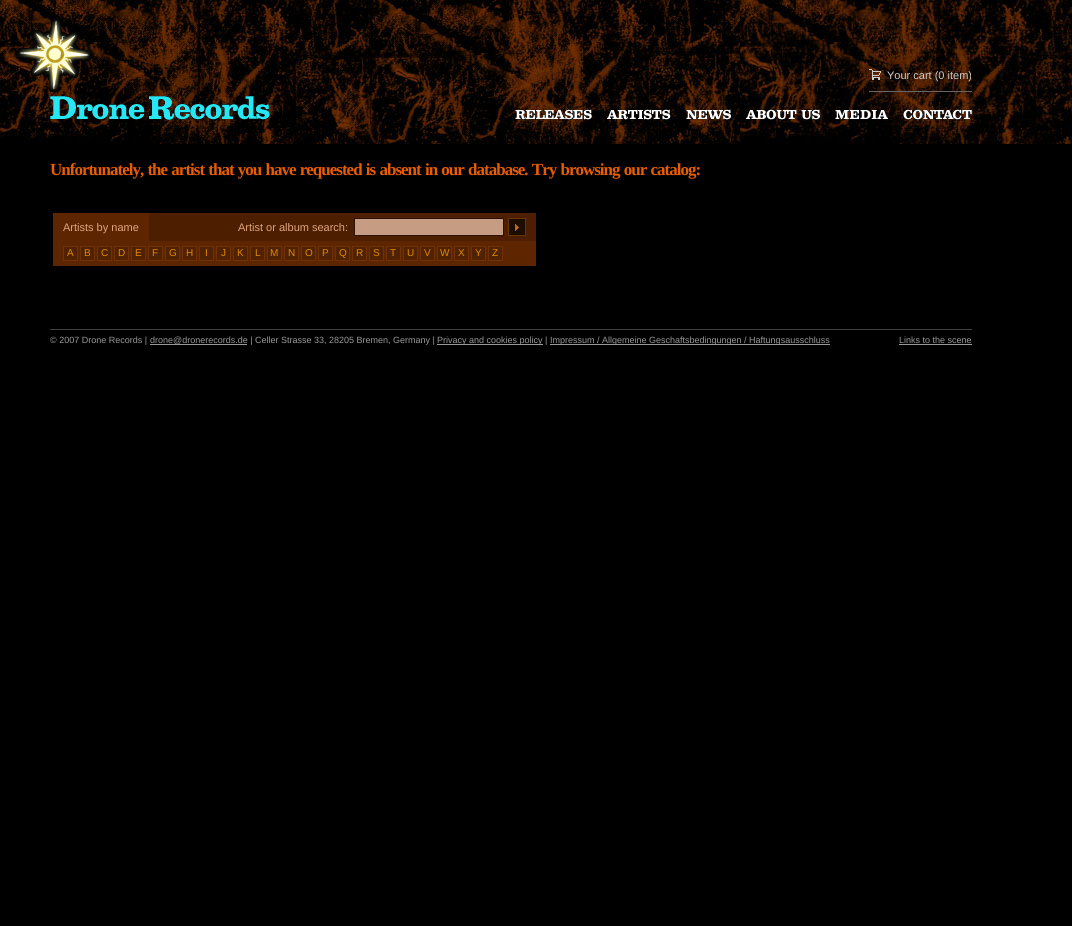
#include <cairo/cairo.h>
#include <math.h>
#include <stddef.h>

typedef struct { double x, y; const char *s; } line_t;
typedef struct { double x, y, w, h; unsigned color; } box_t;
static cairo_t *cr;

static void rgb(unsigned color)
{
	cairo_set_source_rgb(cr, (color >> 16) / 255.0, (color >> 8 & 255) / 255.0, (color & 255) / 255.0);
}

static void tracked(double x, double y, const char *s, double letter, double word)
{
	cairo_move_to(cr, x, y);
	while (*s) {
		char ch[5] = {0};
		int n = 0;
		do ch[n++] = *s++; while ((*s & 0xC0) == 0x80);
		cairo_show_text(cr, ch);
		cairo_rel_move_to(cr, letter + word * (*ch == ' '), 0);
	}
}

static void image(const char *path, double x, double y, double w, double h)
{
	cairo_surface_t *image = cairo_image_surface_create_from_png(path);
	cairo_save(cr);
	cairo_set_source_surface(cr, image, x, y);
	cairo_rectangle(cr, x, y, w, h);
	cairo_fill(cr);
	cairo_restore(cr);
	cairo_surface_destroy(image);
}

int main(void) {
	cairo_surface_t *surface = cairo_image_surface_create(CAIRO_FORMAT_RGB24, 1072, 926);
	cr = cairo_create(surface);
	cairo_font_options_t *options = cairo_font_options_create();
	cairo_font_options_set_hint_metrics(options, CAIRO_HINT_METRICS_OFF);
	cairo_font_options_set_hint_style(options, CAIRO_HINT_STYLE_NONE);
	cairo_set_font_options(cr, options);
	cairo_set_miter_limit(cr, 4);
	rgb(0x000000);
	cairo_paint(cr);
	image("img/1.png", 0, 0, 1072, 144);
	image("img/2.png", 17, 18, 75, 74);
	image("img/3.png", 50, 96, 220, 24);
	rgb(0x666666);
	cairo_rectangle(cr, 869, 91, 103, 1);
	cairo_fill(cr);
	image("img/4.png", 869, 69, 12, 11);
	image("img/5.png", 515, 109, 77, 11);
	image("img/6.png", 607, 109, 64, 11);
	image("img/7.png", 686, 109, 45, 11);
	image("img/8.png", 746, 109, 74, 11);
	image("img/9.png", 835, 110, 53, 9);
	image("img/10.png", 903, 109, 69, 11);
	rgb(0x4d1f00);
	cairo_rectangle(cr, 149, 213, 387, 28);
	cairo_fill(cr);
	rgb(0x5e2600);
	cairo_rectangle(cr, 53, 213, 96, 28);
	cairo_fill(cr);
	rgb(0xc69d82);
	cairo_rectangle(cr, 354.5, 218.5, 149, 17);
	cairo_fill_preserve(cr);
	rgb(0x2b1200);
	cairo_set_line_width(cr, 1);
	cairo_stroke(cr);
	image("img/11.png", 508, 218, 18, 18);
	rgb(0x5e2600);
	cairo_rectangle(cr, 53, 241, 483, 25);
	cairo_fill(cr);
	rgb(0x502202);
	cairo_rectangle(cr, 63.5, 246.5, 14, 14);
	cairo_fill_preserve(cr);
	rgb(0x713106);
	cairo_stroke(cr);
	rgb(0x502202);
	cairo_rectangle(cr, 80.5, 246.5, 14, 14);
	cairo_fill_preserve(cr);
	rgb(0x713106);
	cairo_stroke(cr);
	rgb(0x502202);
	cairo_rectangle(cr, 97.5, 246.5, 14, 14);
	cairo_fill_preserve(cr);
	rgb(0x713106);
	cairo_stroke(cr);
	rgb(0x502202);
	cairo_rectangle(cr, 114.5, 246.5, 14, 14);
	cairo_fill_preserve(cr);
	rgb(0x713106);
	cairo_stroke(cr);
	rgb(0x502202);
	cairo_rectangle(cr, 131.5, 246.5, 14, 14);
	cairo_fill_preserve(cr);
	rgb(0x713106);
	cairo_stroke(cr);
	rgb(0x502202);
	cairo_rectangle(cr, 148.5, 246.5, 14, 14);
	cairo_fill_preserve(cr);
	rgb(0x713106);
	cairo_stroke(cr);
	rgb(0x502202);
	cairo_rectangle(cr, 165.5, 246.5, 14, 14);
	cairo_fill_preserve(cr);
	rgb(0x713106);
	cairo_stroke(cr);
	rgb(0x502202);
	cairo_rectangle(cr, 182.5, 246.5, 14, 14);
	cairo_fill_preserve(cr);
	rgb(0x713106);
	cairo_stroke(cr);
	rgb(0x502202);
	cairo_rectangle(cr, 199.5, 246.5, 14, 14);
	cairo_fill_preserve(cr);
	rgb(0x713106);
	cairo_stroke(cr);
	rgb(0x502202);
	cairo_rectangle(cr, 216.5, 246.5, 14, 14);
	cairo_fill_preserve(cr);
	rgb(0x713106);
	cairo_stroke(cr);
	rgb(0x502202);
	cairo_rectangle(cr, 233.5, 246.5, 14, 14);
	cairo_fill_preserve(cr);
	rgb(0x713106);
	cairo_stroke(cr);
	rgb(0x502202);
	cairo_rectangle(cr, 250.5, 246.5, 14, 14);
	cairo_fill_preserve(cr);
	rgb(0x713106);
	cairo_stroke(cr);
	rgb(0x502202);
	cairo_rectangle(cr, 267.5, 246.5, 14, 14);
	cairo_fill_preserve(cr);
	rgb(0x713106);
	cairo_stroke(cr);
	rgb(0x502202);
	cairo_rectangle(cr, 284.5, 246.5, 14, 14);
	cairo_fill_preserve(cr);
	rgb(0x713106);
	cairo_stroke(cr);
	rgb(0x502202);
	cairo_rectangle(cr, 301.5, 246.5, 14, 14);
	cairo_fill_preserve(cr);
	rgb(0x713106);
	cairo_stroke(cr);
	rgb(0x502202);
	cairo_rectangle(cr, 318.5, 246.5, 14, 14);
	cairo_fill_preserve(cr);
	rgb(0x713106);
	cairo_stroke(cr);
	rgb(0x502202);
	cairo_rectangle(cr, 335.5, 246.5, 14, 14);
	cairo_fill_preserve(cr);
	rgb(0x713106);
	cairo_stroke(cr);
	rgb(0x502202);
	cairo_rectangle(cr, 352.5, 246.5, 14, 14);
	cairo_fill_preserve(cr);
	rgb(0x713106);
	cairo_stroke(cr);
	rgb(0x502202);
	cairo_rectangle(cr, 369.5, 246.5, 14, 14);
	cairo_fill_preserve(cr);
	rgb(0x713106);
	cairo_stroke(cr);
	rgb(0x502202);
	cairo_rectangle(cr, 386.5, 246.5, 14, 14);
	cairo_fill_preserve(cr);
	rgb(0x713106);
	cairo_stroke(cr);
	rgb(0x502202);
	cairo_rectangle(cr, 403.5, 246.5, 14, 14);
	cairo_fill_preserve(cr);
	rgb(0x713106);
	cairo_stroke(cr);
	rgb(0x502202);
	cairo_rectangle(cr, 420.5, 246.5, 14, 14);
	cairo_fill_preserve(cr);
	rgb(0x713106);
	cairo_stroke(cr);
	rgb(0x502202);
	cairo_rectangle(cr, 437.5, 246.5, 14, 14);
	cairo_fill_preserve(cr);
	rgb(0x713106);
	cairo_stroke(cr);
	rgb(0x502202);
	cairo_rectangle(cr, 454.5, 246.5, 14, 14);
	cairo_fill_preserve(cr);
	rgb(0x713106);
	cairo_stroke(cr);
	rgb(0x502202);
	cairo_rectangle(cr, 471.5, 246.5, 14, 14);
	cairo_fill_preserve(cr);
	rgb(0x713106);
	cairo_stroke(cr);
	rgb(0x502202);
	cairo_rectangle(cr, 488.5, 246.5, 14, 14);
	cairo_fill_preserve(cr);
	rgb(0x713106);
	cairo_stroke(cr);
	{
		static const box_t items[] = {
			{50, 329, 922, 1, 0x404040},
			{150, 344, 97, 1, 0x999999},
			{437, 344, 106, 1, 0x999999},
			{550, 344, 280, 1, 0x999999},
			{899, 344, 73, 1, 0x999999},
		};
		for (size_t i = 0; i < sizeof items / sizeof *items; i++) {
			rgb(items[i].color);
			cairo_rectangle(cr, items[i].x, items[i].y, items[i].w, items[i].h);
			cairo_fill(cr);
		}
	}
	cairo_select_font_face(cr, "Liberation Sans", CAIRO_FONT_SLANT_NORMAL, CAIRO_FONT_WEIGHT_NORMAL);
	cairo_set_font_size(cr, 11);
	rgb(0xcccccc);
	cairo_move_to(cr, 887, 79);
	cairo_show_text(cr, "Your cart (0 item)");
	cairo_select_font_face(cr, "Liberation Serif", CAIRO_FONT_SLANT_NORMAL, CAIRO_FONT_WEIGHT_BOLD);
	cairo_set_font_size(cr, 17);
	rgb(0xe75d02);
	tracked(50, 175, "Unfortunately, the artist that you have requested is absent in our database. Try browsing our catalog:", -1, 1);
	cairo_select_font_face(cr, "Liberation Sans", CAIRO_FONT_SLANT_NORMAL, CAIRO_FONT_WEIGHT_NORMAL);
	cairo_set_font_size(cr, 11);
	rgb(0xdfa47e);
	cairo_move_to(cr, 63, 231);
	cairo_show_text(cr, "Artists by name");
	cairo_move_to(cr, 238, 231);
	cairo_show_text(cr, "Artist or album search:");
	cairo_set_font_size(cr, 10);
	rgb(0xe28800);
	{
		static const line_t items[] = {
			{67, 256, "A"},
			{84, 256, "B"},
			{101, 256, "C"},
			{118, 256, "D"},
			{135, 256, "E"},
			{152, 256, "F"},
			{169, 256, "G"},
			{186, 256, "H"},
			{205, 256, "I"},
			{221, 256, "J"},
			{237, 256, "K"},
			{255, 256, "L"},
			{270, 256, "M"},
			{288, 256, "N"},
			{305, 256, "O"},
			{322, 256, "P"},
			{339, 256, "Q"},
			{356, 256, "R"},
			{373, 256, "S"},
			{390, 256, "T"},
			{407, 256, "U"},
			{424, 256, "V"},
			{440, 256, "W"},
			{458, 256, "X"},
			{475, 256, "Y"},
			{492, 256, "Z"},
		};
		for (size_t i = 0; i < sizeof items / sizeof *items; i++) {
			cairo_move_to(cr, items[i].x, items[i].y);
			cairo_show_text(cr, items[i].s);
		}
	}
	cairo_set_font_size(cr, 9);
	rgb(0x999999);
	{
		static const line_t items[] = {
			{50, 343, "© 2007 Drone Records |"},
			{150, 343, "drone@dronerecords.de | Celler Strasse 33, 28205 Bremen, Germany |"},
			{437, 343, "Privacy and cookies policy |"},
			{550, 343, "Impressum / Allgemeine Geschaftsbedingungen / Haftungsausschluss"},
			{899, 343, "Links to the scene"},
		};
		for (size_t i = 0; i < sizeof items / sizeof *items; i++) {
			cairo_move_to(cr, items[i].x, items[i].y);
			cairo_show_text(cr, items[i].s);
		}
	}
	cairo_surface_write_to_png(surface, "page.png");
	cairo_font_options_destroy(options);
	cairo_destroy(cr);
	cairo_surface_destroy(surface);
	return 0;
}
